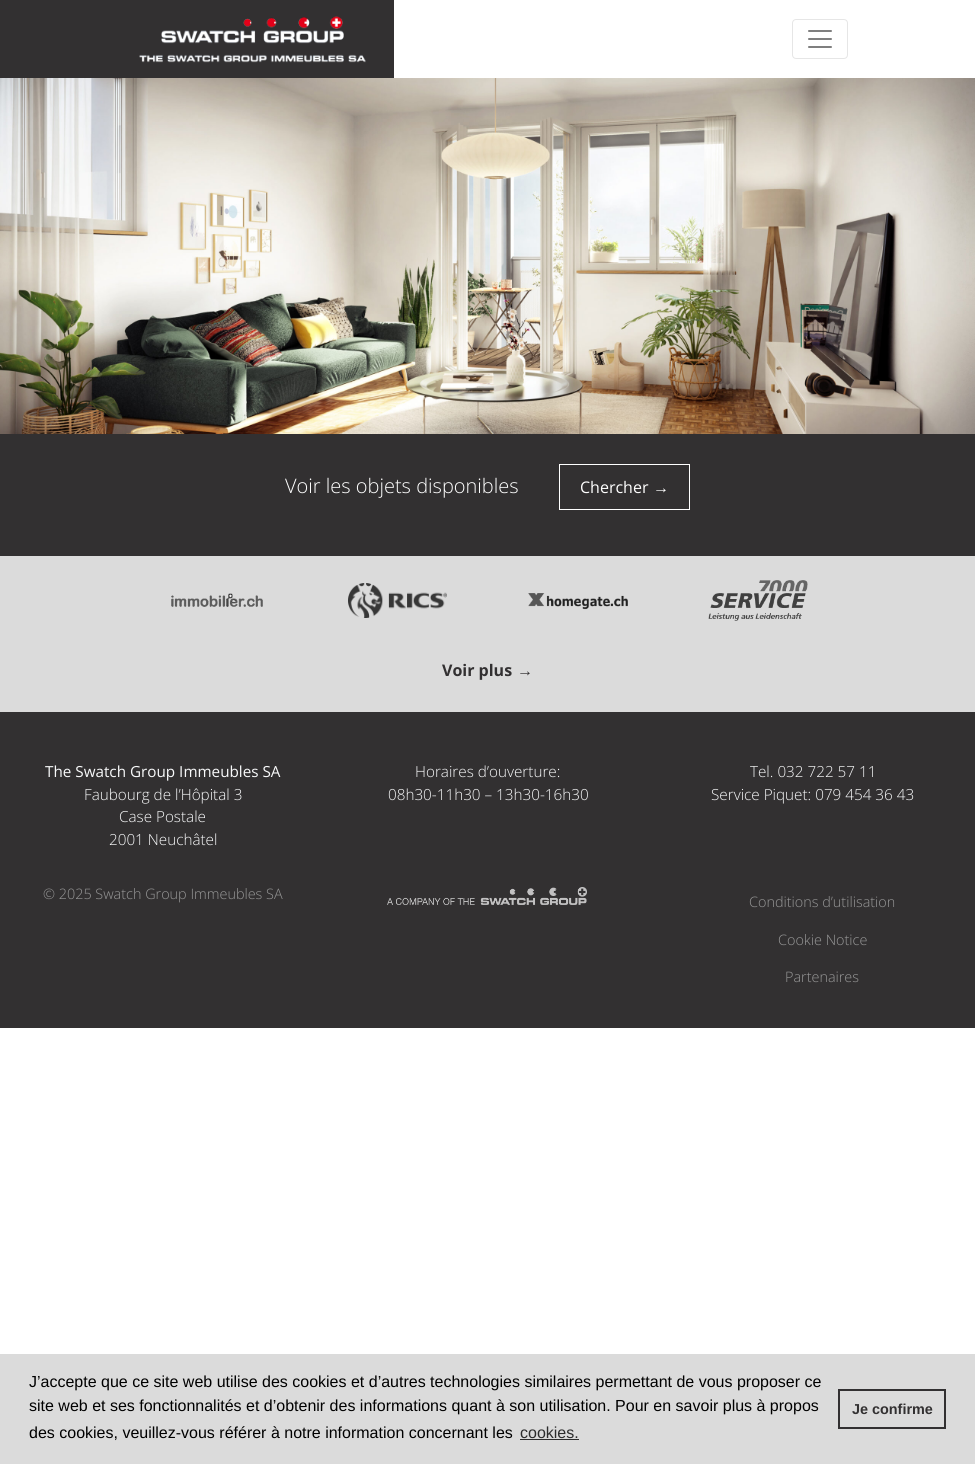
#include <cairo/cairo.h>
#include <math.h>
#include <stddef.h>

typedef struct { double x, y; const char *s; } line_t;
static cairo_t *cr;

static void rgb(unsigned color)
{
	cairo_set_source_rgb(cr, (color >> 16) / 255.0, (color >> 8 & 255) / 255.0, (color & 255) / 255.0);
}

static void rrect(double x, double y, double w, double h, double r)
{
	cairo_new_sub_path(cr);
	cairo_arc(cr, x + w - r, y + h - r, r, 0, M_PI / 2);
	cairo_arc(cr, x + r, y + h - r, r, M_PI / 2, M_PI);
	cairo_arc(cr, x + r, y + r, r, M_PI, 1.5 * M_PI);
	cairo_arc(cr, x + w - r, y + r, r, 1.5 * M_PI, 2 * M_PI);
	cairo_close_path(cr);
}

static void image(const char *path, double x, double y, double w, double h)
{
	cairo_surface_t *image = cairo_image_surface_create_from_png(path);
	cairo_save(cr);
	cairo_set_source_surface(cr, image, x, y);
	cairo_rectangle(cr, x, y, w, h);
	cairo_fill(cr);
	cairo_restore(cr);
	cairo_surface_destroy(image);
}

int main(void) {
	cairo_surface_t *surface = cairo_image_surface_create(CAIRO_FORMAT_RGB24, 975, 1464);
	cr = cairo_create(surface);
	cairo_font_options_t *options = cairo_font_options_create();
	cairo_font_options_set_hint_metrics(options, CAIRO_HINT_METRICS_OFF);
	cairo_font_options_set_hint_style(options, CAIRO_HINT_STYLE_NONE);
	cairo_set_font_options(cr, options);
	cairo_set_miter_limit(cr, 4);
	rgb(0xffffff);
	cairo_paint(cr);
	rgb(0x323031);
	cairo_rectangle(cr, 0, 0, 394, 78);
	cairo_fill(cr);
	image("img/1.png", 139, 16, 227, 47);
	rrect(792.5, 19.5, 55, 39, 3.5);
	rgb(0xe6e6e6);
	cairo_set_line_width(cr, 1);
	cairo_stroke(cr);
	image("img/2.png", 808, 30, 24, 18);
	image("img/3.png", 0, 78, 975, 356);
	rgb(0x323031);
	cairo_rectangle(cr, 0, 434, 975, 122);
	cairo_fill(cr);
	cairo_rectangle(cr, 559.5, 464.5, 130, 45);
	rgb(0xffffff);
	cairo_stroke(cr);
	rgb(0xdbdbdb);
	cairo_rectangle(cr, 0, 556, 975, 156);
	cairo_fill(cr);
	image("img/4.png", 171, 593, 92, 14);
	image("img/5.png", 348, 583, 99, 35);
	image("img/6.png", 528, 593, 100, 17);
	image("img/7.png", 708, 580, 100, 41);
	rgb(0x323031);
	cairo_rectangle(cr, 0, 712, 975, 316);
	cairo_fill(cr);
	image("img/8.png", 387, 887, 200, 18);
	rgb(0xdbdbdb);
	cairo_rectangle(cr, 0, 1354, 975, 110);
	cairo_fill(cr);
	rgb(0x2c2c2c);
	cairo_rectangle(cr, 520, 1439, 59, 1);
	cairo_fill(cr);
	cairo_rectangle(cr, 839, 1390, 106, 38);
	rgb(0x323031);
	cairo_set_line_width(cr, 2);
	cairo_stroke(cr);
	cairo_select_font_face(cr, "Open Sans Light", CAIRO_FONT_SLANT_NORMAL, CAIRO_FONT_WEIGHT_NORMAL);
	cairo_set_font_size(cr, 20);
	rgb(0xffffff);
	cairo_move_to(cr, 285, 493);
	cairo_show_text(cr, "Voir les objets disponibles");
	cairo_select_font_face(cr, "Open Sans", CAIRO_FONT_SLANT_NORMAL, CAIRO_FONT_WEIGHT_NORMAL);
	cairo_set_font_size(cr, 16);
	cairo_move_to(cr, 580, 493);
	cairo_show_text(cr, "Chercher");
	cairo_select_font_face(cr, "Liberation Sans", CAIRO_FONT_SLANT_NORMAL, CAIRO_FONT_WEIGHT_NORMAL);
	cairo_move_to(cr, 653, 493);
	cairo_show_text(cr, "→");
	cairo_select_font_face(cr, "Open Sans", CAIRO_FONT_SLANT_NORMAL, CAIRO_FONT_WEIGHT_BOLD);
	rgb(0x323031);
	cairo_move_to(cr, 442, 676);
	cairo_show_text(cr, "Voir plus");
	cairo_select_font_face(cr, "Liberation Sans", CAIRO_FONT_SLANT_NORMAL, CAIRO_FONT_WEIGHT_BOLD);
	cairo_move_to(cr, 517, 676);
	cairo_show_text(cr, "→");
	cairo_select_font_face(cr, "Open Sans", CAIRO_FONT_SLANT_NORMAL, CAIRO_FONT_WEIGHT_NORMAL);
	cairo_set_font_size(cr, 15.25);
	rgb(0xf8f9fa);
	cairo_move_to(cr, 45, 777);
	cairo_show_text(cr, "The Swatch Group Immeubles SA");
	cairo_select_font_face(cr, "Open Sans Light", CAIRO_FONT_SLANT_NORMAL, CAIRO_FONT_WEIGHT_NORMAL);
	{
		static const line_t items[] = {
			{84, 800, "Faubourg de l’Hôpital 3"},
			{119, 822, "Case Postale"},
			{109, 845, "2001 Neuchâtel"},
			{415, 777, "Horaires d’ouverture:"},
			{388, 800, "08h30-11h30 – 13h30-16h30"},
			{750, 777, "Tel. 032 722 57 11"},
			{711, 800, "Service Piquet: 079 454 36 43"},
		};
		for (size_t i = 0; i < sizeof items / sizeof *items; i++) {
			cairo_move_to(cr, items[i].x, items[i].y);
			cairo_show_text(cr, items[i].s);
		}
	}
	cairo_set_font_size(cr, 14.4);
	rgb(0x979797);
	{
		static const line_t items[] = {
			{43, 899, "© 2025 Swatch Group Immeubles SA"},
			{749, 907, "Conditions d’utilisation"},
			{778, 945, "Cookie Notice"},
			{785, 982, "Partenaires"},
		};
		for (size_t i = 0; i < sizeof items / sizeof *items; i++) {
			cairo_move_to(cr, items[i].x, items[i].y);
			cairo_show_text(cr, items[i].s);
		}
	}
	cairo_select_font_face(cr, "Liberation Sans", CAIRO_FONT_SLANT_NORMAL, CAIRO_FONT_WEIGHT_NORMAL);
	cairo_set_font_size(cr, 16);
	rgb(0x000000);
	{
		static const line_t items[] = {
			{29, 1387, "J’accepte que ce site web utilise des cookies et d’autres technologies similaires permettant de vous proposer ce"},
			{29, 1411, "site web et ses fonctionnalités et d’obtenir des informations quant à son utilisation. Pour en savoir plus à propos"},
			{29, 1438, "des cookies, veuillez-vous référer à notre information concernant les"},
		};
		for (size_t i = 0; i < sizeof items / sizeof *items; i++) {
			cairo_move_to(cr, items[i].x, items[i].y);
			cairo_show_text(cr, items[i].s);
		}
	}
	rgb(0x2c2c2c);
	cairo_move_to(cr, 520, 1438);
	cairo_show_text(cr, "cookies.");
	cairo_select_font_face(cr, "Liberation Sans", CAIRO_FONT_SLANT_NORMAL, CAIRO_FONT_WEIGHT_BOLD);
	cairo_set_font_size(cr, 14.4);
	rgb(0x323031);
	cairo_move_to(cr, 852, 1414);
	cairo_show_text(cr, "Je confirme");
	cairo_surface_write_to_png(surface, "page.png");
	cairo_font_options_destroy(options);
	cairo_destroy(cr);
	cairo_surface_destroy(surface);
	return 0;
}
